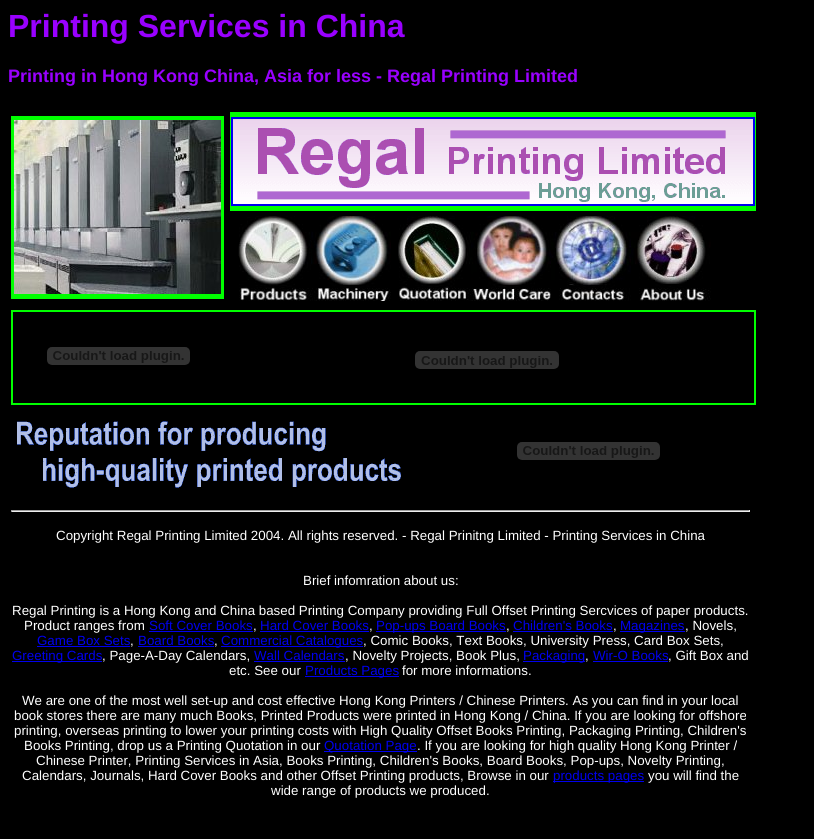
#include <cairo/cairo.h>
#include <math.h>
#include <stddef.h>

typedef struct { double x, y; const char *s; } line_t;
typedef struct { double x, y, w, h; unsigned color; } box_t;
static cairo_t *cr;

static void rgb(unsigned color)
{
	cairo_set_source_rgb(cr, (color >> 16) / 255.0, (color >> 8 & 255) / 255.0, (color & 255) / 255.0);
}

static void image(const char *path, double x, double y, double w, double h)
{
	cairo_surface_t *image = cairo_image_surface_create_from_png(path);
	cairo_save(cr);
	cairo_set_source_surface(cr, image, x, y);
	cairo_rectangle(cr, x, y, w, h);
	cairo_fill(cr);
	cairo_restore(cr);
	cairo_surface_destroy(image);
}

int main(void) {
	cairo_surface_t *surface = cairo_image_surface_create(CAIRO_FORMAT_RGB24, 814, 839);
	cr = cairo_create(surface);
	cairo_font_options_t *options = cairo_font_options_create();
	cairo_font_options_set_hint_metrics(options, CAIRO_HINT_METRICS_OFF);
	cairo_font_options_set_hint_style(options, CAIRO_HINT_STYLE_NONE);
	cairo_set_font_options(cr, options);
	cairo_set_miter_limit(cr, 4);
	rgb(0x000000);
	cairo_paint(cr);
	rgb(0x00ff00);
	cairo_rectangle(cr, 11, 116, 213, 183);
	cairo_fill(cr);
	image("img/1.png", 14, 120, 207, 174);
	cairo_rectangle(cr, 230, 112, 526, 99);
	cairo_fill(cr);
	cairo_rectangle(cr, 232, 118, 522, 87);
	rgb(0x0000ee);
	cairo_stroke(cr);
	image("img/2.png", 233, 119, 520, 85);
	image("img/3.png", 238, 216, 73, 85);
	image("img/4.png", 311, 216, 80, 85);
	image("img/5.png", 398, 216, 73, 85);
	image("img/6.png", 471, 216, 80, 85);
	image("img/7.png", 551, 216, 80, 85);
	image("img/8.png", 631, 216, 80, 85);
	rgb(0x00ff00);
	cairo_rectangle(cr, 11, 310, 745, 95);
	cairo_fill(cr);
	rgb(0x000000);
	cairo_rectangle(cr, 13, 312, 741, 91);
	cairo_fill(cr);
	image("img/9.png", 47, 347, 143, 18);
	image("img/10.png", 415, 351, 144, 18);
	image("img/11.png", 17, 421, 384, 67);
	image("img/9.png", 517, 442, 143, 18);
	{
		static const box_t items[] = {
			{11, 510, 739, 1, 0x9f9f9f},
			{749, 510, 1, 2, 0xeeeeee},
			{11, 511, 739, 1, 0xeeeeee},
			{11, 510, 1, 2, 0x9f9f9f},
			{149, 631, 104, 1, 0x0000ee},
			{260, 631, 109, 1, 0x0000ee},
			{376, 631, 130, 1, 0x0000ee},
			{513, 631, 100, 1, 0x0000ee},
			{620, 631, 65, 1, 0x0000ee},
			{37, 646, 93, 1, 0x0000ee},
			{138, 646, 76, 1, 0x0000ee},
			{221, 646, 142, 1, 0x0000ee},
			{12, 661, 90, 1, 0x0000ee},
			{254, 661, 91, 1, 0x0000ee},
			{523, 661, 62, 1, 0x0000ee},
			{593, 661, 75, 1, 0x0000ee},
			{305, 676, 94, 1, 0x0000ee},
			{324, 751, 93, 1, 0x0000ee},
			{553, 781, 91, 1, 0x0000ee},
		};
		for (size_t i = 0; i < sizeof items / sizeof *items; i++) {
			rgb(items[i].color);
			cairo_rectangle(cr, items[i].x, items[i].y, items[i].w, items[i].h);
			cairo_fill(cr);
		}
	}
	cairo_select_font_face(cr, "Liberation Sans", CAIRO_FONT_SLANT_NORMAL, CAIRO_FONT_WEIGHT_BOLD);
	cairo_set_font_size(cr, 32);
	rgb(0x9900ff);
	cairo_move_to(cr, 8, 37);
	cairo_show_text(cr, "Printing Services in China");
	cairo_set_font_size(cr, 18);
	cairo_move_to(cr, 8, 82);
	cairo_show_text(cr, "Printing in Hong Kong China, Asia for less - Regal Printing Limited");
	cairo_select_font_face(cr, "Liberation Sans", CAIRO_FONT_SLANT_NORMAL, CAIRO_FONT_WEIGHT_NORMAL);
	cairo_set_font_size(cr, 13.33);
	rgb(0xffffff);
	{
		static const line_t items[] = {
			{56, 540, "Copyright Regal Printing Limited 2004. All rights reserved. - Regal Prinitng Limited - Printing Services in China"},
			{303, 585, "Brief infomration about us:"},
			{12, 615, "Regal Printing is a Hong Kong and China based Printing Company providing Full Offset Printing Sercvices of paper products."},
			{24, 630, "Product ranges from"},
		};
		for (size_t i = 0; i < sizeof items / sizeof *items; i++) {
			cairo_move_to(cr, items[i].x, items[i].y);
			cairo_show_text(cr, items[i].s);
		}
	}
	rgb(0x0000ee);
	cairo_move_to(cr, 149, 630);
	cairo_show_text(cr, "Soft Cover Books");
	rgb(0xffffff);
	cairo_move_to(cr, 253, 630);
	cairo_show_text(cr, ",");
	rgb(0x0000ee);
	cairo_move_to(cr, 260, 630);
	cairo_show_text(cr, "Hard Cover Books");
	rgb(0xffffff);
	cairo_move_to(cr, 369, 630);
	cairo_show_text(cr, ",");
	rgb(0x0000ee);
	cairo_move_to(cr, 376, 630);
	cairo_show_text(cr, "Pop-ups Board Books");
	rgb(0xffffff);
	cairo_move_to(cr, 506, 630);
	cairo_show_text(cr, ",");
	rgb(0x0000ee);
	cairo_move_to(cr, 513, 630);
	cairo_show_text(cr, "Children's Books");
	rgb(0xffffff);
	cairo_move_to(cr, 613, 630);
	cairo_show_text(cr, ",");
	rgb(0x0000ee);
	cairo_move_to(cr, 620, 630);
	cairo_show_text(cr, "Magazines");
	rgb(0xffffff);
	cairo_move_to(cr, 685, 630);
	cairo_show_text(cr, ", Novels,");
	rgb(0x0000ee);
	cairo_move_to(cr, 37, 645);
	cairo_show_text(cr, "Game Box Sets");
	rgb(0xffffff);
	cairo_move_to(cr, 130, 645);
	cairo_show_text(cr, ",");
	rgb(0x0000ee);
	cairo_move_to(cr, 138, 645);
	cairo_show_text(cr, "Board Books");
	rgb(0xffffff);
	cairo_move_to(cr, 214, 645);
	cairo_show_text(cr, ",");
	rgb(0x0000ee);
	cairo_move_to(cr, 221, 645);
	cairo_show_text(cr, "Commercial Catalogues");
	rgb(0xffffff);
	cairo_move_to(cr, 363, 645);
	cairo_show_text(cr, ", Comic Books, Text Books, University Press, Card Box Sets,");
	rgb(0x0000ee);
	cairo_move_to(cr, 12, 660);
	cairo_show_text(cr, "Greeting Cards");
	rgb(0xffffff);
	cairo_move_to(cr, 102, 660);
	cairo_show_text(cr, ", Page-A-Day Calendars,");
	rgb(0x0000ee);
	cairo_move_to(cr, 254, 660);
	cairo_show_text(cr, "Wall Calendars");
	rgb(0xffffff);
	cairo_move_to(cr, 345, 660);
	cairo_show_text(cr, ", Novelty Projects, Book Plus,");
	rgb(0x0000ee);
	cairo_move_to(cr, 523, 660);
	cairo_show_text(cr, "Packaging");
	rgb(0xffffff);
	cairo_move_to(cr, 585, 660);
	cairo_show_text(cr, ",");
	rgb(0x0000ee);
	cairo_move_to(cr, 593, 660);
	cairo_show_text(cr, "Wir-O Books");
	rgb(0xffffff);
	cairo_move_to(cr, 668, 660);
	cairo_show_text(cr, ", Gift Box and");
	cairo_move_to(cr, 229, 675);
	cairo_show_text(cr, "etc. See our");
	rgb(0x0000ee);
	cairo_move_to(cr, 305, 675);
	cairo_show_text(cr, "Products Pages");
	rgb(0xffffff);
	{
		static const line_t items[] = {
			{402, 675, "for more informations."},
			{22, 705, "We are one of the most well set-up and cost effective Hong Kong Printers / Chinese Printers. As you can find in your local"},
			{14, 720, "book stores there are many much Books, Printed Products were printed in Hong Kong / China. If you are looking for offshore"},
			{14, 735, "printing, overseas printing to lower your printing costs with High Quality Offset Books Printing, Packaging Printing, Children's"},
			{24, 750, "Books Printing, drop us a Printing Quotation in our"},
		};
		for (size_t i = 0; i < sizeof items / sizeof *items; i++) {
			cairo_move_to(cr, items[i].x, items[i].y);
			cairo_show_text(cr, items[i].s);
		}
	}
	rgb(0x0000ee);
	cairo_move_to(cr, 324, 750);
	cairo_show_text(cr, "Quotation Page");
	rgb(0xffffff);
	{
		static const line_t items[] = {
			{417, 750, ". If you are looking for high quality Hong Kong Printer /"},
			{36, 765, "Chinese Printer, Printing Services in Asia, Books Printing, Children's Books, Board Books, Pop-ups, Novelty Printing,"},
			{22, 780, "Calendars, Journals, Hard Cover Books and other Offset Printing products, Browse in our"},
		};
		for (size_t i = 0; i < sizeof items / sizeof *items; i++) {
			cairo_move_to(cr, items[i].x, items[i].y);
			cairo_show_text(cr, items[i].s);
		}
	}
	rgb(0x0000ee);
	cairo_move_to(cr, 553, 780);
	cairo_show_text(cr, "products pages");
	rgb(0xffffff);
	cairo_move_to(cr, 648, 780);
	cairo_show_text(cr, "you will find the");
	cairo_move_to(cr, 271, 795);
	cairo_show_text(cr, "wide range of products we produced.");
	cairo_surface_write_to_png(surface, "page.png");
	cairo_font_options_destroy(options);
	cairo_destroy(cr);
	cairo_surface_destroy(surface);
	return 0;
}
